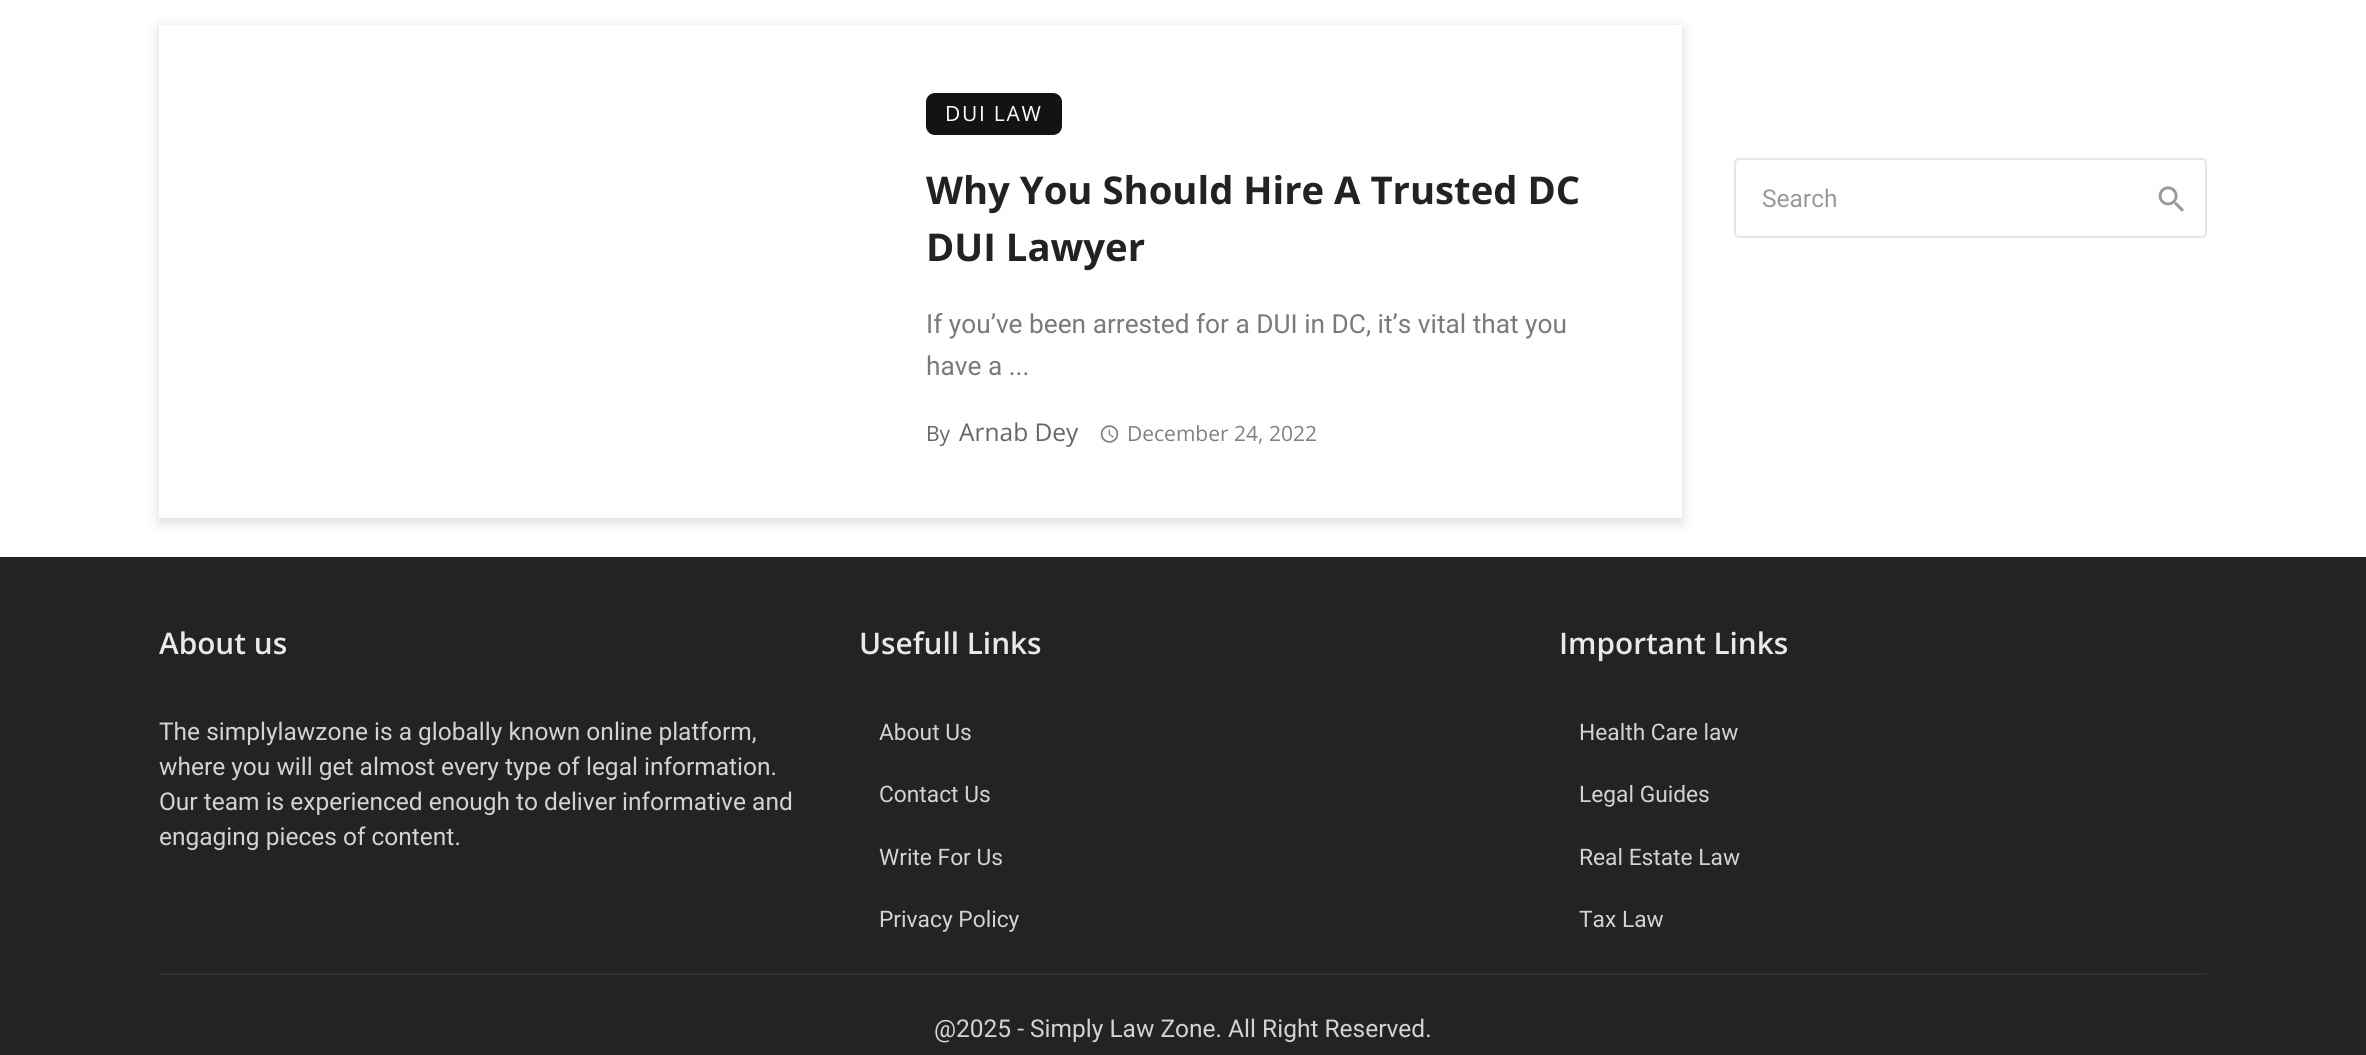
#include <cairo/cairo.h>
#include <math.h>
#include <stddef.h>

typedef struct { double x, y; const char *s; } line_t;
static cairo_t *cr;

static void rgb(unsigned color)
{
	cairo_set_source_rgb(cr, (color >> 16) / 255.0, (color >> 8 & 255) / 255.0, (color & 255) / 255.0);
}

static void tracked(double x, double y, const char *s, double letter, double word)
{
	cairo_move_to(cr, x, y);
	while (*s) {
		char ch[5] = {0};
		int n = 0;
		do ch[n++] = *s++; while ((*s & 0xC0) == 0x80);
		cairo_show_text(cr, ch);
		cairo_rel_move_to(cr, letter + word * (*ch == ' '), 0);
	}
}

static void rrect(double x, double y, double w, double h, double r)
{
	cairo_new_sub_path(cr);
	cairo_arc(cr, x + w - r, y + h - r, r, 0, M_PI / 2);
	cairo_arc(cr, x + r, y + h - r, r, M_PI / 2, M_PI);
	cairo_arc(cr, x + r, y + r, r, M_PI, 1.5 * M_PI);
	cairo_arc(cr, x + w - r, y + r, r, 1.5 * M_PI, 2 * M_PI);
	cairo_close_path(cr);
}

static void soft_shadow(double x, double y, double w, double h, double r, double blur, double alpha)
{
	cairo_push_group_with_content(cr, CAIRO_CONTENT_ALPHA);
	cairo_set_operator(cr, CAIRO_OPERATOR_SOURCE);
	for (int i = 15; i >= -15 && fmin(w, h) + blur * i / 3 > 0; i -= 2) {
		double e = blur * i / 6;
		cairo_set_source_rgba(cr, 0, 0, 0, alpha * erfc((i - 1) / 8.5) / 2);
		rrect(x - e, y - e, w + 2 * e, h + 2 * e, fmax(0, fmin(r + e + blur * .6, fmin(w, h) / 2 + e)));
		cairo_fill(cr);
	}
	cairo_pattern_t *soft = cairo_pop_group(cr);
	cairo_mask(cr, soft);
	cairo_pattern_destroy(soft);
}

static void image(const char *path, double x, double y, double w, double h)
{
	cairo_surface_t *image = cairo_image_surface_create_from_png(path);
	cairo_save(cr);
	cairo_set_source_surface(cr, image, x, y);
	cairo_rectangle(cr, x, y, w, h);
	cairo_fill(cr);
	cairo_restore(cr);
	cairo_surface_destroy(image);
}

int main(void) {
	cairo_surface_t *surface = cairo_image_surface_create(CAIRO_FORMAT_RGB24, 2366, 1055);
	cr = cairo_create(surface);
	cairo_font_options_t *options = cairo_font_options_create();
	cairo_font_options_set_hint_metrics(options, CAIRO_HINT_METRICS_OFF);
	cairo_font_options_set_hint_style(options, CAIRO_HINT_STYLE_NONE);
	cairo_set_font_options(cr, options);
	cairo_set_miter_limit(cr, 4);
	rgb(0xffffff);
	cairo_paint(cr);
	rgb(0x000000);
	soft_shadow(159, 28, 1523, 494, 0, 7, 0.15);
	rgb(0xffffff);
	cairo_rectangle(cr, 159, 25, 1523, 493);
	cairo_fill(cr);
	rgb(0x131313);
	rrect(926, 93, 136, 42, 9);
	cairo_fill(cr);
	image("img/1.png", 1100, 425, 19, 18);
	rrect(1735, 159, 471, 78, 4);
	rgb(0xe6e6e6);
	cairo_stroke(cr);
	image("img/2.png", 2158, 186, 26, 26);
	rgb(0x232323);
	cairo_rectangle(cr, 0, 557, 2366, 498);
	cairo_fill(cr);
	rgb(0x303030);
	cairo_rectangle(cr, 159, 973, 2048, 2);
	cairo_fill(cr);
	cairo_select_font_face(cr, "Open Sans", CAIRO_FONT_SLANT_NORMAL, CAIRO_FONT_WEIGHT_NORMAL);
	cairo_set_font_size(cr, 21);
	rgb(0xffffff);
	tracked(945, 121, "DUI LAW", 1.75, 0);
	cairo_select_font_face(cr, "Open Sans", CAIRO_FONT_SLANT_NORMAL, CAIRO_FONT_WEIGHT_BOLD);
	cairo_set_font_size(cr, 38.25);
	rgb(0x222222);
	cairo_move_to(cr, 926, 204);
	cairo_show_text(cr, "Why You Should Hire A Trusted DC");
	cairo_move_to(cr, 926, 261);
	cairo_show_text(cr, "DUI Lawyer");
	cairo_select_font_face(cr, "Roboto", CAIRO_FONT_SLANT_NORMAL, CAIRO_FONT_WEIGHT_NORMAL);
	cairo_set_font_size(cr, 26.25);
	rgb(0x7a7a7a);
	cairo_move_to(cr, 926, 333);
	cairo_show_text(cr, "If you’ve been arrested for a DUI in DC, it’s vital that you");
	cairo_move_to(cr, 926, 375);
	cairo_show_text(cr, "have a ...");
	cairo_select_font_face(cr, "Open Sans", CAIRO_FONT_SLANT_NORMAL, CAIRO_FONT_WEIGHT_NORMAL);
	cairo_set_font_size(cr, 21);
	rgb(0x666666);
	cairo_move_to(cr, 926, 441);
	cairo_show_text(cr, "By");
	cairo_set_font_size(cr, 24.5);
	cairo_move_to(cr, 959, 441);
	cairo_show_text(cr, "Arnab Dey");
	cairo_set_font_size(cr, 21);
	rgb(0x808080);
	cairo_move_to(cr, 1127, 441);
	cairo_show_text(cr, "December 24, 2022");
	cairo_select_font_face(cr, "Roboto", CAIRO_FONT_SLANT_NORMAL, CAIRO_FONT_WEIGHT_NORMAL);
	cairo_set_font_size(cr, 24.5);
	rgb(0x999999);
	cairo_move_to(cr, 1762, 207);
	cairo_show_text(cr, "Search");
	cairo_select_font_face(cr, "Open Sans SemiBold", CAIRO_FONT_SLANT_NORMAL, CAIRO_FONT_WEIGHT_NORMAL);
	cairo_set_font_size(cr, 29.75);
	rgb(0xe9e9e9);
	cairo_move_to(cr, 159, 654);
	cairo_show_text(cr, "About us");
	cairo_select_font_face(cr, "Roboto", CAIRO_FONT_SLANT_NORMAL, CAIRO_FONT_WEIGHT_NORMAL);
	cairo_set_font_size(cr, 24.5);
	rgb(0xd3d3d3);
	{
		static const line_t items[] = {
			{159, 740, "The simplylawzone is a globally known online platform,"},
			{159, 775, "where you will get almost every type of legal information."},
			{159, 810, "Our team is experienced enough to deliver informative and"},
			{159, 845, "engaging pieces of content."},
		};
		for (size_t i = 0; i < sizeof items / sizeof *items; i++) {
			cairo_move_to(cr, items[i].x, items[i].y);
			cairo_show_text(cr, items[i].s);
		}
	}
	cairo_select_font_face(cr, "Open Sans SemiBold", CAIRO_FONT_SLANT_NORMAL, CAIRO_FONT_WEIGHT_NORMAL);
	cairo_set_font_size(cr, 29.75);
	rgb(0xe9e9e9);
	cairo_move_to(cr, 859, 654);
	cairo_show_text(cr, "Usefull Links");
	cairo_select_font_face(cr, "Roboto", CAIRO_FONT_SLANT_NORMAL, CAIRO_FONT_WEIGHT_NORMAL);
	cairo_set_font_size(cr, 22.75);
	rgb(0xd3d3d3);
	{
		static const line_t items[] = {
			{879, 740, "About Us"},
			{879, 802, "Contact Us"},
			{879, 865, "Write For Us"},
			{879, 927, "Privacy Policy"},
		};
		for (size_t i = 0; i < sizeof items / sizeof *items; i++) {
			cairo_move_to(cr, items[i].x, items[i].y);
			cairo_show_text(cr, items[i].s);
		}
	}
	cairo_select_font_face(cr, "Open Sans SemiBold", CAIRO_FONT_SLANT_NORMAL, CAIRO_FONT_WEIGHT_NORMAL);
	cairo_set_font_size(cr, 29.75);
	rgb(0xe9e9e9);
	cairo_move_to(cr, 1559, 654);
	cairo_show_text(cr, "Important Links");
	cairo_select_font_face(cr, "Roboto", CAIRO_FONT_SLANT_NORMAL, CAIRO_FONT_WEIGHT_NORMAL);
	cairo_set_font_size(cr, 22.75);
	rgb(0xd3d3d3);
	{
		static const line_t items[] = {
			{1579, 740, "Health Care law"},
			{1579, 802, "Legal Guides"},
			{1579, 865, "Real Estate Law"},
			{1579, 927, "Tax Law"},
		};
		for (size_t i = 0; i < sizeof items / sizeof *items; i++) {
			cairo_move_to(cr, items[i].x, items[i].y);
			cairo_show_text(cr, items[i].s);
		}
	}
	cairo_set_font_size(cr, 24.5);
	cairo_move_to(cr, 934, 1037);
	cairo_show_text(cr, "@2025 - Simply Law Zone. All Right Reserved.");
	cairo_surface_write_to_png(surface, "page.png");
	cairo_font_options_destroy(options);
	cairo_destroy(cr);
	cairo_surface_destroy(surface);
	return 0;
}
